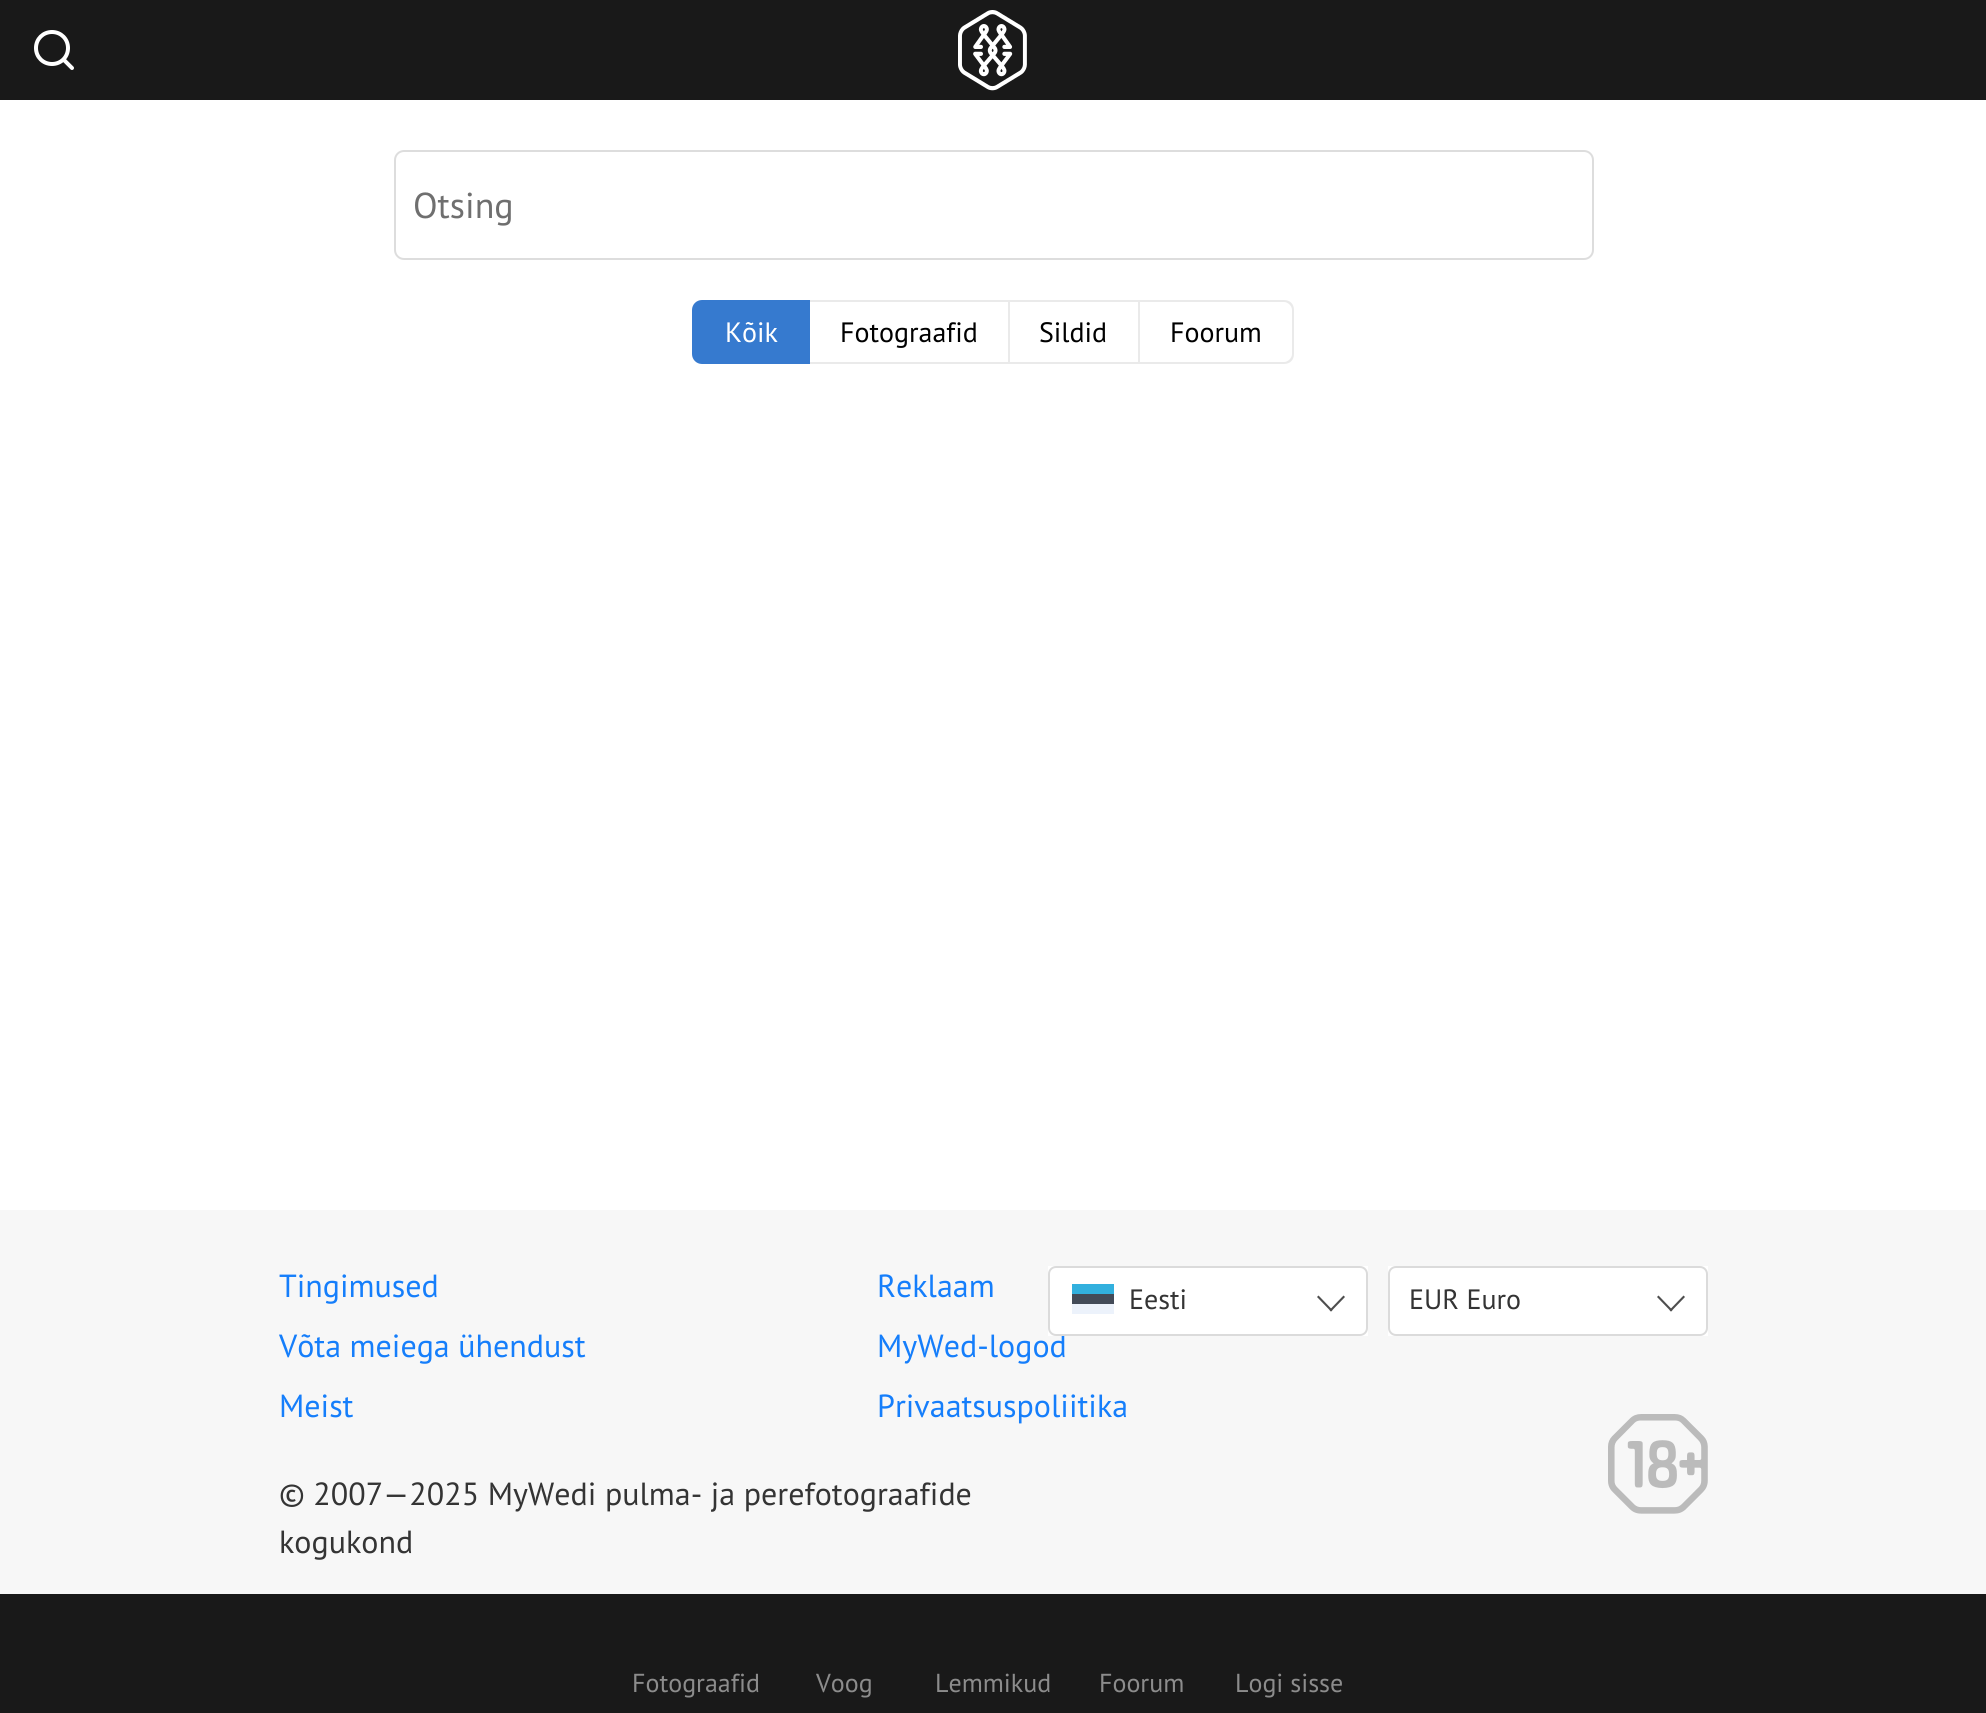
#include <cairo/cairo.h>
#include <math.h>
#include <stddef.h>

typedef struct { double x, y; const char *s; } line_t;
typedef struct { double x, y, w, h; unsigned color; } box_t;
static cairo_t *cr;

static void rgb(unsigned color)
{
	cairo_set_source_rgb(cr, (color >> 16) / 255.0, (color >> 8 & 255) / 255.0, (color & 255) / 255.0);
}

static void rrect(double x, double y, double w, double h, double r)
{
	cairo_new_sub_path(cr);
	cairo_arc(cr, x + w - r, y + h - r, r, 0, M_PI / 2);
	cairo_arc(cr, x + r, y + h - r, r, M_PI / 2, M_PI);
	cairo_arc(cr, x + r, y + r, r, M_PI, 1.5 * M_PI);
	cairo_arc(cr, x + w - r, y + r, r, 1.5 * M_PI, 2 * M_PI);
	cairo_close_path(cr);
}

static void image(const char *path, double x, double y, double w, double h)
{
	cairo_surface_t *image = cairo_image_surface_create_from_png(path);
	cairo_save(cr);
	cairo_set_source_surface(cr, image, x, y);
	cairo_rectangle(cr, x, y, w, h);
	cairo_fill(cr);
	cairo_restore(cr);
	cairo_surface_destroy(image);
}

int main(void) {
	cairo_surface_t *surface = cairo_image_surface_create(CAIRO_FORMAT_RGB24, 1986, 1713);
	cr = cairo_create(surface);
	cairo_font_options_t *options = cairo_font_options_create();
	cairo_font_options_set_hint_metrics(options, CAIRO_HINT_METRICS_OFF);
	cairo_font_options_set_hint_style(options, CAIRO_HINT_STYLE_NONE);
	cairo_set_font_options(cr, options);
	cairo_set_miter_limit(cr, 4);
	rgb(0xffffff);
	cairo_paint(cr);
	rgb(0x191919);
	cairo_rectangle(cr, 0, 0, 1986, 100);
	cairo_fill(cr);
	cairo_new_path(cr);
	cairo_move_to(cr, 52, 64);
	cairo_curve_to(cr, 61, 64, 68, 57, 68, 48);
	cairo_curve_to(cr, 68, 39, 61, 32, 52, 32);
	cairo_curve_to(cr, 43, 32, 36, 39, 36, 48);
	cairo_curve_to(cr, 36, 57, 43, 64, 52, 64);
	cairo_close_path(cr);
	cairo_move_to(cr, 72, 68);
	cairo_line_to(cr, 63.5, 59.5);
	rgb(0xffffff);
	cairo_set_line_width(cr, 4);
	cairo_set_line_cap(cr, CAIRO_LINE_CAP_ROUND);
	cairo_set_line_join(cr, CAIRO_LINE_JOIN_ROUND);
	cairo_stroke(cr);
	image("img/1.png", 958, 10, 69, 81);
	rrect(395, 151, 1198, 108, 9);
	rgb(0xdddddd);
	cairo_set_line_width(cr, 2);
	cairo_set_line_cap(cr, CAIRO_LINE_CAP_BUTT);
	cairo_set_line_join(cr, CAIRO_LINE_JOIN_MITER);
	cairo_stroke(cr);
	rgb(0x367acf);
	cairo_new_path(cr);
	cairo_move_to(cr, 702, 301);
	cairo_line_to(cr, 809, 301);
	cairo_line_to(cr, 809, 363);
	cairo_line_to(cr, 702, 363);
	cairo_curve_to(cr, 697, 363, 693, 359, 693, 354);
	cairo_line_to(cr, 693, 310);
	cairo_curve_to(cr, 693, 305, 697, 301, 702, 301);
	cairo_close_path(cr);
	cairo_fill_preserve(cr);
	cairo_stroke(cr);
	{
		static const box_t items[] = {
			{810, 300, 330, 2, 0xeaeaea},
			{1008, 300, 2, 64, 0xeaeaea},
			{810, 362, 200, 2, 0xeaeaea},
			{1138, 300, 2, 64, 0xeaeaea},
			{1010, 362, 130, 2, 0xeaeaea},
		};
		for (size_t i = 0; i < sizeof items / sizeof *items; i++) {
			rgb(items[i].color);
			cairo_rectangle(cr, items[i].x, items[i].y, items[i].w, items[i].h);
			cairo_fill(cr);
		}
	}
	cairo_set_fill_rule(cr, CAIRO_FILL_RULE_EVEN_ODD);
	cairo_new_path(cr);
	cairo_move_to(cr, 1140, 300);
	cairo_line_to(cr, 1284, 300);
	cairo_curve_to(cr, 1290, 300, 1294, 304, 1294, 310);
	cairo_line_to(cr, 1294, 354);
	cairo_curve_to(cr, 1294, 360, 1290, 364, 1284, 364);
	cairo_line_to(cr, 1140, 364);
	cairo_close_path(cr);
	cairo_move_to(cr, 1140, 302);
	cairo_line_to(cr, 1284, 302);
	cairo_curve_to(cr, 1288, 302, 1292, 306, 1292, 310);
	cairo_line_to(cr, 1292, 354);
	cairo_curve_to(cr, 1292, 358, 1288, 362, 1284, 362);
	cairo_line_to(cr, 1140, 362);
	cairo_close_path(cr);
	cairo_fill(cr);
	rgb(0xf7f7f7);
	cairo_rectangle(cr, 0, 1210, 1986, 384);
	cairo_fill(cr);
	rgb(0xffffff);
	cairo_rectangle(cr, 1388, 1266, 320, 70);
	cairo_fill(cr);
	rrect(1389, 1267, 318, 68, 7);
	rgb(0xdbdbdb);
	cairo_stroke(cr);
	rgb(0x4e4e4e);
	cairo_set_fill_rule(cr, CAIRO_FILL_RULE_WINDING);
	cairo_new_path(cr);
	cairo_move_to(cr, 1669.5, 1310);
	cairo_line_to(cr, 1683.5, 1295.5);
	cairo_line_to(cr, 1685, 1297);
	cairo_line_to(cr, 1671, 1311.5);
	cairo_close_path(cr);
	cairo_fill(cr);
	cairo_new_path(cr);
	cairo_move_to(cr, 1657, 1297);
	cairo_line_to(cr, 1658.5, 1295.5);
	cairo_line_to(cr, 1672.5, 1310);
	cairo_line_to(cr, 1671, 1311.5);
	cairo_close_path(cr);
	cairo_fill(cr);
	image("img/3.png", 1608, 1414, 100, 100);
	rgb(0x191919);
	cairo_rectangle(cr, 0, 1594, 1986, 119);
	cairo_fill(cr);
	cairo_select_font_face(cr, "PT Sans", CAIRO_FONT_SLANT_NORMAL, CAIRO_FONT_WEIGHT_NORMAL);
	cairo_set_font_size(cr, 36);
	rgb(0x6f6f6f);
	cairo_move_to(cr, 413, 218);
	cairo_show_text(cr, "Otsing");
	cairo_set_font_size(cr, 28);
	rgb(0xffffff);
	cairo_move_to(cr, 725, 342);
	cairo_show_text(cr, "Kõik");
	rgb(0x000000);
	{
		static const line_t items[] = {
			{840, 342, "Fotograafid"},
			{1039, 342, "Sildid"},
			{1170, 342, "Foorum"},
		};
		for (size_t i = 0; i < sizeof items / sizeof *items; i++) {
			cairo_move_to(cr, items[i].x, items[i].y);
			cairo_show_text(cr, items[i].s);
		}
	}
	cairo_set_font_size(cr, 32);
	rgb(0x157efb);
	{
		static const line_t items[] = {
			{279, 1297, "Tingimused"},
			{877, 1297, "Reklaam"},
			{279, 1357, "Võta meiega ühendust"},
			{877, 1357, "MyWed-logod"},
			{279, 1417, "Meist"},
			{877, 1417, "Privaatsuspoliitika"},
		};
		for (size_t i = 0; i < sizeof items / sizeof *items; i++) {
			cairo_move_to(cr, items[i].x, items[i].y);
			cairo_show_text(cr, items[i].s);
		}
	}
	rgb(0xffffff);
	cairo_rectangle(cr, 1048, 1266, 320, 70);
	cairo_fill(cr);
	rrect(1049, 1267, 318, 68, 7);
	rgb(0xdbdbdb);
	cairo_stroke(cr);
	image("img/2.png", 1072, 1284, 42, 30);
	cairo_set_font_size(cr, 28);
	rgb(0x343434);
	cairo_move_to(cr, 1129, 1309);
	cairo_show_text(cr, "Eesti");
	rgb(0x4e4e4e);
	cairo_new_path(cr);
	cairo_move_to(cr, 1329.5, 1310);
	cairo_line_to(cr, 1343.5, 1295.5);
	cairo_line_to(cr, 1345, 1297);
	cairo_line_to(cr, 1331, 1311.5);
	cairo_close_path(cr);
	cairo_fill(cr);
	cairo_new_path(cr);
	cairo_move_to(cr, 1317, 1297);
	cairo_line_to(cr, 1318.5, 1295.5);
	cairo_line_to(cr, 1332.5, 1310);
	cairo_line_to(cr, 1331, 1311.5);
	cairo_close_path(cr);
	cairo_fill(cr);
	rgb(0x343434);
	cairo_move_to(cr, 1409, 1309);
	cairo_show_text(cr, "EUR Euro");
	cairo_set_font_size(cr, 32);
	cairo_move_to(cr, 279, 1505);
	cairo_show_text(cr, "© 2007—2025 MyWedi pulma- ja perefotograafide");
	cairo_move_to(cr, 279, 1553);
	cairo_show_text(cr, "kogukond");
	cairo_set_font_size(cr, 26);
	rgb(0x8c8c8c);
	{
		static const line_t items[] = {
			{632, 1692, "Fotograafid"},
			{816, 1692, "Voog"},
			{935, 1692, "Lemmikud"},
			{1099, 1692, "Foorum"},
			{1235, 1692, "Logi sisse"},
		};
		for (size_t i = 0; i < sizeof items / sizeof *items; i++) {
			cairo_move_to(cr, items[i].x, items[i].y);
			cairo_show_text(cr, items[i].s);
		}
	}
	cairo_surface_write_to_png(surface, "page.png");
	cairo_font_options_destroy(options);
	cairo_destroy(cr);
	cairo_surface_destroy(surface);
	return 0;
}
